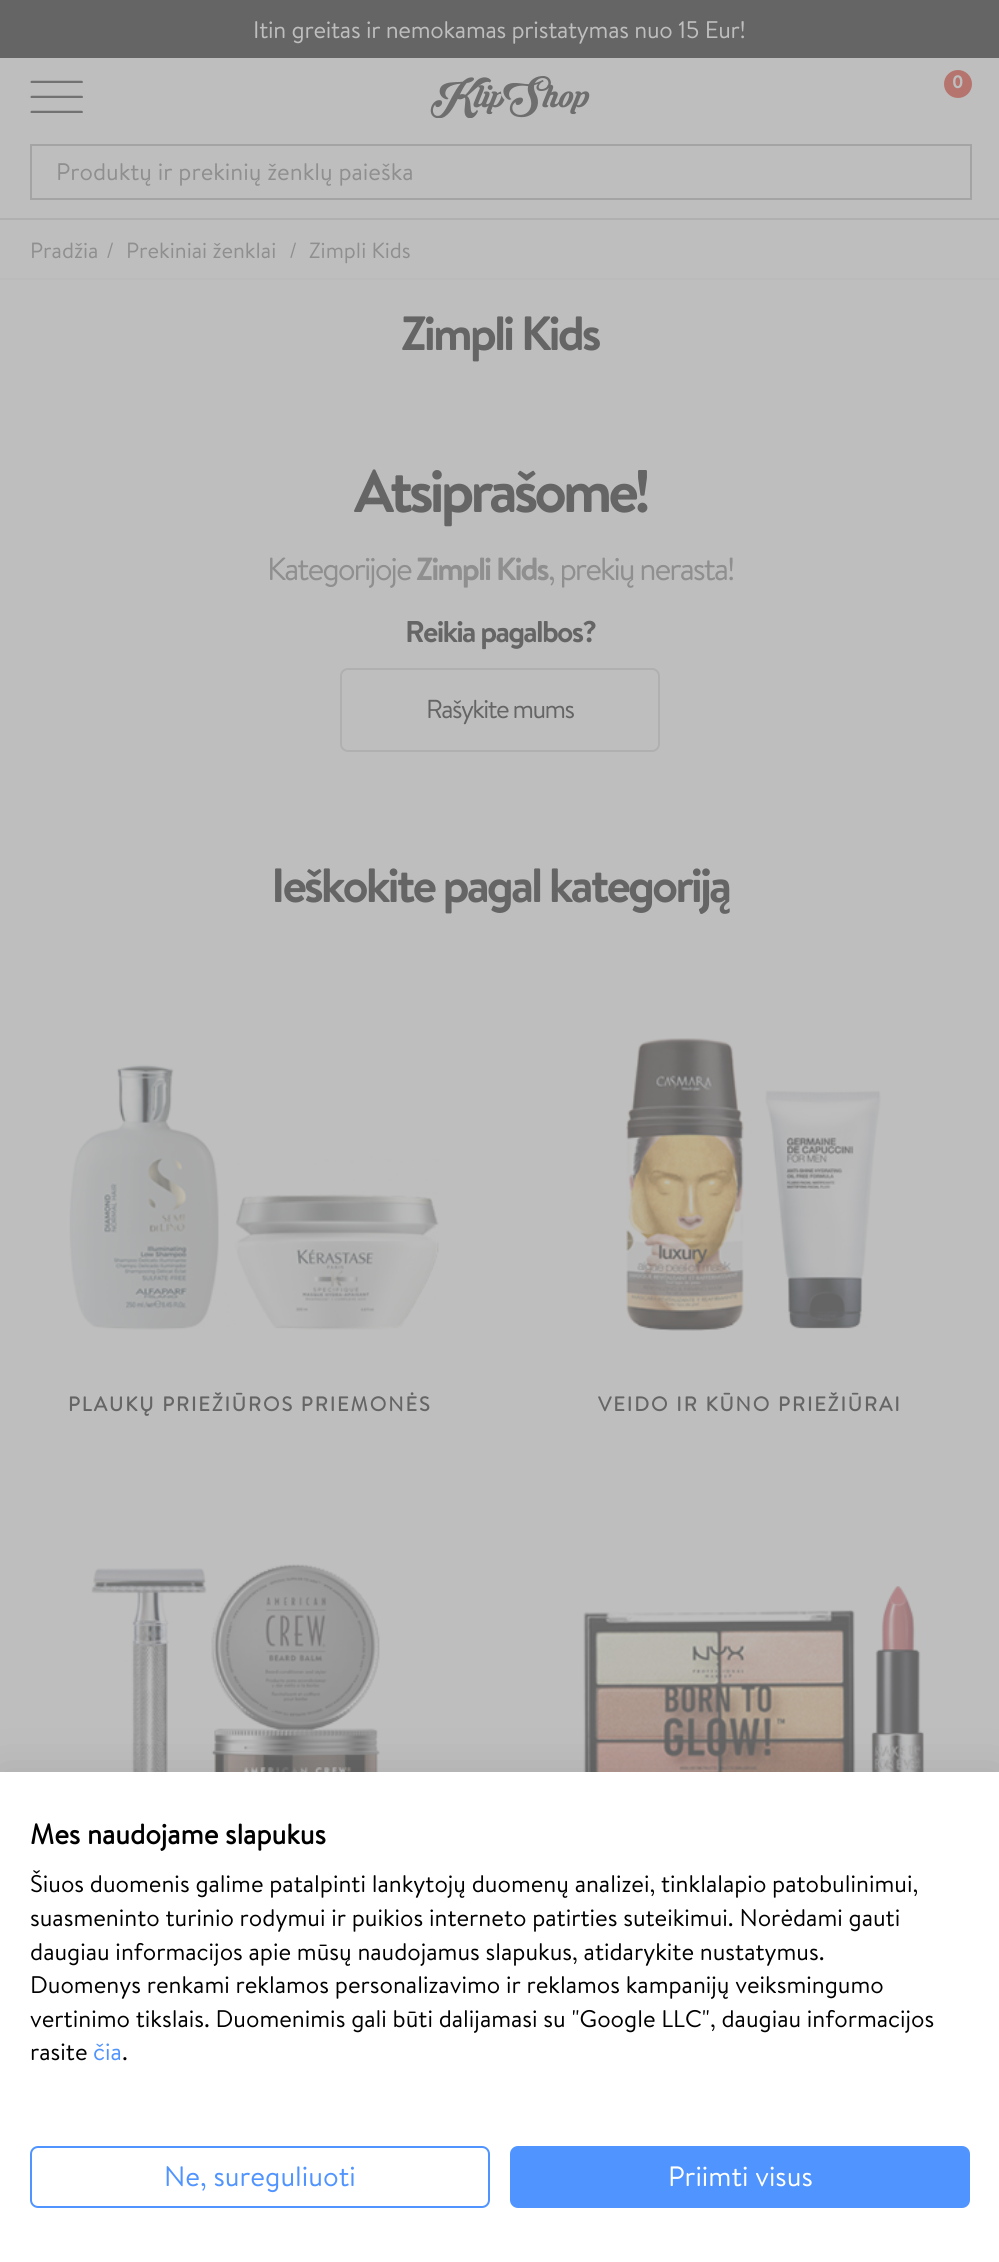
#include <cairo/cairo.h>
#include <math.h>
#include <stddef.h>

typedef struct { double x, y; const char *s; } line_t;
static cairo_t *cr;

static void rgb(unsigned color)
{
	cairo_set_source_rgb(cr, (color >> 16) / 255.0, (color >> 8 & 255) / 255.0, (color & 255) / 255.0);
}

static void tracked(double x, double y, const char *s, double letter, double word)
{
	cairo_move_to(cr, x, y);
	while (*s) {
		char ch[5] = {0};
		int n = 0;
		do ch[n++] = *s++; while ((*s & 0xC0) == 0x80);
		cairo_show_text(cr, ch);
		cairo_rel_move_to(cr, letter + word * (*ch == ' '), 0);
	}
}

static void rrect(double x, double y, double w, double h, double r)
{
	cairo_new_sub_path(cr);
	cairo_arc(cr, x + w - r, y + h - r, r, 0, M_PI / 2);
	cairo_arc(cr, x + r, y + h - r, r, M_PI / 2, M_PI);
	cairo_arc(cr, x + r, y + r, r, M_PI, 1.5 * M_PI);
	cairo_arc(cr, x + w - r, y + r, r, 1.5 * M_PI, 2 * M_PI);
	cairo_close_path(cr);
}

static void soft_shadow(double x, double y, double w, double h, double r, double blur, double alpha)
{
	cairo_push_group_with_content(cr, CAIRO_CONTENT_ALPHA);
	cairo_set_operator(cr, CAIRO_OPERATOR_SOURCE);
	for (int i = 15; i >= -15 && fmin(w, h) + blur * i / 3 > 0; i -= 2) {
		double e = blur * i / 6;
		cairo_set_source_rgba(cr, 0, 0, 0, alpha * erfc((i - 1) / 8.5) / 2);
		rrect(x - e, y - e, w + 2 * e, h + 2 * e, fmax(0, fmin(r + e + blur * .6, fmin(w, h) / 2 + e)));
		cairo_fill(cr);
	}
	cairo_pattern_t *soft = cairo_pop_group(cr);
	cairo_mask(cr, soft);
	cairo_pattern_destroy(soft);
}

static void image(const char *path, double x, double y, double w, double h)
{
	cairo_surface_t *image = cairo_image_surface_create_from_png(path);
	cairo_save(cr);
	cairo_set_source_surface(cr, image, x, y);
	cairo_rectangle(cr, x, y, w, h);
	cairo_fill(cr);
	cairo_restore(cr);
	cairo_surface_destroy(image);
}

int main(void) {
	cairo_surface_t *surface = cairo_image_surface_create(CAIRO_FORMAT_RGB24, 999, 2262);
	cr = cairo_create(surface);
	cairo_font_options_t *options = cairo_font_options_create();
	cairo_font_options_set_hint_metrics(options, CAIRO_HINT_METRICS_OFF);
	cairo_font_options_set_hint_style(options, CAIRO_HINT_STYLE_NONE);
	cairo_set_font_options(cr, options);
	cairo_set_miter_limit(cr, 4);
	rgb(0xbebebe);
	cairo_paint(cr);
	rgb(0x656565);
	cairo_rectangle(cr, 0, 0, 999, 58);
	cairo_fill(cr);
	rgb(0xb0b0b0);
	cairo_rectangle(cr, 0, 218, 999, 2);
	cairo_fill(cr);
	image("img/1.png", 30, 80, 53, 33);
	image("img/2.png", 430, 76, 160, 42);
	rgb(0xb5746e);
	cairo_arc(cr, 958, 84, 14, 0, 2 * M_PI);
	cairo_fill(cr);
	cairo_rectangle(cr, 31, 145, 940, 54);
	rgb(0xa4a4a4);
	cairo_stroke(cr);
	rgb(0xbbbbbb);
	cairo_rectangle(cr, 0, 278, 999, 2);
	cairo_fill(cr);
	rrect(341, 669, 318, 82, 7);
	rgb(0xb0b0b0);
	cairo_stroke(cr);
	image("img/3.png", 69, 1064, 370, 266);
	image("img/4.png", 626, 1038, 255, 293);
	image("img/5.png", 91, 1564, 289, 208);
	image("img/6.png", 583, 1586, 346, 186);
	rgb(0x000000);
	soft_shadow(0, 1772, 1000, 490, 0, 24, 0.1);
	rgb(0xffffff);
	cairo_rectangle(cr, 0, 1772, 999, 490);
	cairo_fill(cr);
	rrect(31, 2147, 458, 60, 7);
	rgb(0x5094ff);
	cairo_stroke(cr);
	rrect(511, 2147, 458, 60, 7);
	cairo_fill_preserve(cr);
	cairo_stroke(cr);
	cairo_select_font_face(cr, "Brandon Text", CAIRO_FONT_SLANT_NORMAL, CAIRO_FONT_WEIGHT_NORMAL);
	cairo_set_font_size(cr, 24);
	rgb(0xbebebe);
	tracked(253, 38, "Itin greitas ir nemokamas pristatymas nuo 15 Eur!", -0.25, 0);
	cairo_select_font_face(cr, "Brandon Text", CAIRO_FONT_SLANT_NORMAL, CAIRO_FONT_WEIGHT_BOLD);
	cairo_set_font_size(cr, 18);
	cairo_move_to(cr, 952, 88);
	cairo_show_text(cr, "0");
	cairo_select_font_face(cr, "Brandon Text", CAIRO_FONT_SLANT_NORMAL, CAIRO_FONT_WEIGHT_NORMAL);
	cairo_set_font_size(cr, 24);
	rgb(0x8f8f8f);
	cairo_move_to(cr, 56, 180);
	cairo_show_text(cr, "Produktų ir prekinių ženklų paieška");
	cairo_set_font_size(cr, 22);
	{
		static const line_t items[] = {
			{30, 258, "Pradžia"},
			{106, 258, "/"},
			{126, 258, "Prekiniai ženklai"},
			{289, 258, "/"},
			{309, 258, "Zimpli Kids"},
		};
		for (size_t i = 0; i < sizeof items / sizeof *items; i++) {
			cairo_move_to(cr, items[i].x, items[i].y);
			cairo_show_text(cr, items[i].s);
		}
	}
	cairo_select_font_face(cr, "Brandon Text", CAIRO_FONT_SLANT_NORMAL, CAIRO_FONT_WEIGHT_BOLD);
	cairo_set_font_size(cr, 48);
	rgb(0x656565);
	tracked(401, 350, "Zimpli Kids", -3, 0);
	cairo_set_font_size(cr, 60);
	tracked(354, 512, "Atsiprašome!", -4.25, 0);
	cairo_select_font_face(cr, "Brandon Text", CAIRO_FONT_SLANT_NORMAL, CAIRO_FONT_WEIGHT_NORMAL);
	cairo_set_font_size(cr, 32);
	rgb(0x8f8f8f);
	tracked(267, 580, "Kategorijoje", -2, 0);
	cairo_select_font_face(cr, "Brandon Text", CAIRO_FONT_SLANT_NORMAL, CAIRO_FONT_WEIGHT_BOLD);
	tracked(416, 580, "Zimpli Kids", -2, 0);
	cairo_select_font_face(cr, "Brandon Text", CAIRO_FONT_SLANT_NORMAL, CAIRO_FONT_WEIGHT_NORMAL);
	tracked(548, 580, ", prekių nerasta!", -2, 0);
	cairo_select_font_face(cr, "Brandon Text", CAIRO_FONT_SLANT_NORMAL, CAIRO_FONT_WEIGHT_BOLD);
	cairo_set_font_size(cr, 30);
	rgb(0x656565);
	tracked(405, 642, "Reikia pagalbos?", -1.75, 0);
	cairo_select_font_face(cr, "Brandon Text", CAIRO_FONT_SLANT_NORMAL, CAIRO_FONT_WEIGHT_NORMAL);
	cairo_set_font_size(cr, 26);
	tracked(426, 718, "Rašykite mums", -1.6, 0);
	cairo_select_font_face(cr, "Brandon Text", CAIRO_FONT_SLANT_NORMAL, CAIRO_FONT_WEIGHT_BOLD);
	cairo_set_font_size(cr, 48);
	tracked(271, 902, "Ieškokite pagal kategoriją", -3, 0);
	cairo_select_font_face(cr, "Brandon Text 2", CAIRO_FONT_SLANT_NORMAL, CAIRO_FONT_WEIGHT_BOLD);
	cairo_set_font_size(cr, 20);
	tracked(68, 1411, "PLAUKŲ PRIEŽIŪROS PRIEMONĖS", 2, 0);
	tracked(598, 1411, "VEIDO IR KŪNO PRIEŽIŪRAI", 2, 0);
	cairo_set_font_size(cr, 28);
	rgb(0x000000);
	cairo_move_to(cr, 30, 1844);
	cairo_show_text(cr, "Mes naudojame slapukus");
	cairo_select_font_face(cr, "Brandon Text", CAIRO_FONT_SLANT_NORMAL, CAIRO_FONT_WEIGHT_NORMAL);
	cairo_set_font_size(cr, 24);
	{
		static const line_t items[] = {
			{30, 1892, "Šiuos duomenis galime patalpinti lankytojų duomenų analizei, tinklalapio patobulinimui,"},
			{30, 1926, "suasmeninto turinio rodymui ir puikios interneto patirties suteikimui. Norėdami gauti"},
			{30, 1960, "daugiau informacijos apie mūsų naudojamus slapukus, atidarykite nustatymus."},
			{30, 1993, "Duomenys renkami reklamos personalizavimo ir reklamos kampanijų veiksmingumo"},
			{30, 2027, "vertinimo tikslais. Duomenimis gali būti dalijamasi su \"Google LLC\", daugiau informacijos"},
			{30, 2060, "rasite"},
		};
		for (size_t i = 0; i < sizeof items / sizeof *items; i++) {
			cairo_move_to(cr, items[i].x, items[i].y);
			cairo_show_text(cr, items[i].s);
		}
	}
	rgb(0x5094ff);
	cairo_move_to(cr, 93, 2060);
	cairo_show_text(cr, "čia");
	rgb(0x000000);
	cairo_move_to(cr, 122, 2060);
	cairo_show_text(cr, ".");
	cairo_set_font_size(cr, 28);
	rgb(0x5094ff);
	cairo_move_to(cr, 164, 2186);
	cairo_show_text(cr, "Ne, sureguliuoti");
	rgb(0xffffff);
	cairo_move_to(cr, 668, 2186);
	cairo_show_text(cr, "Priimti visus");
	cairo_surface_write_to_png(surface, "page.png");
	cairo_font_options_destroy(options);
	cairo_destroy(cr);
	cairo_surface_destroy(surface);
	return 0;
}
